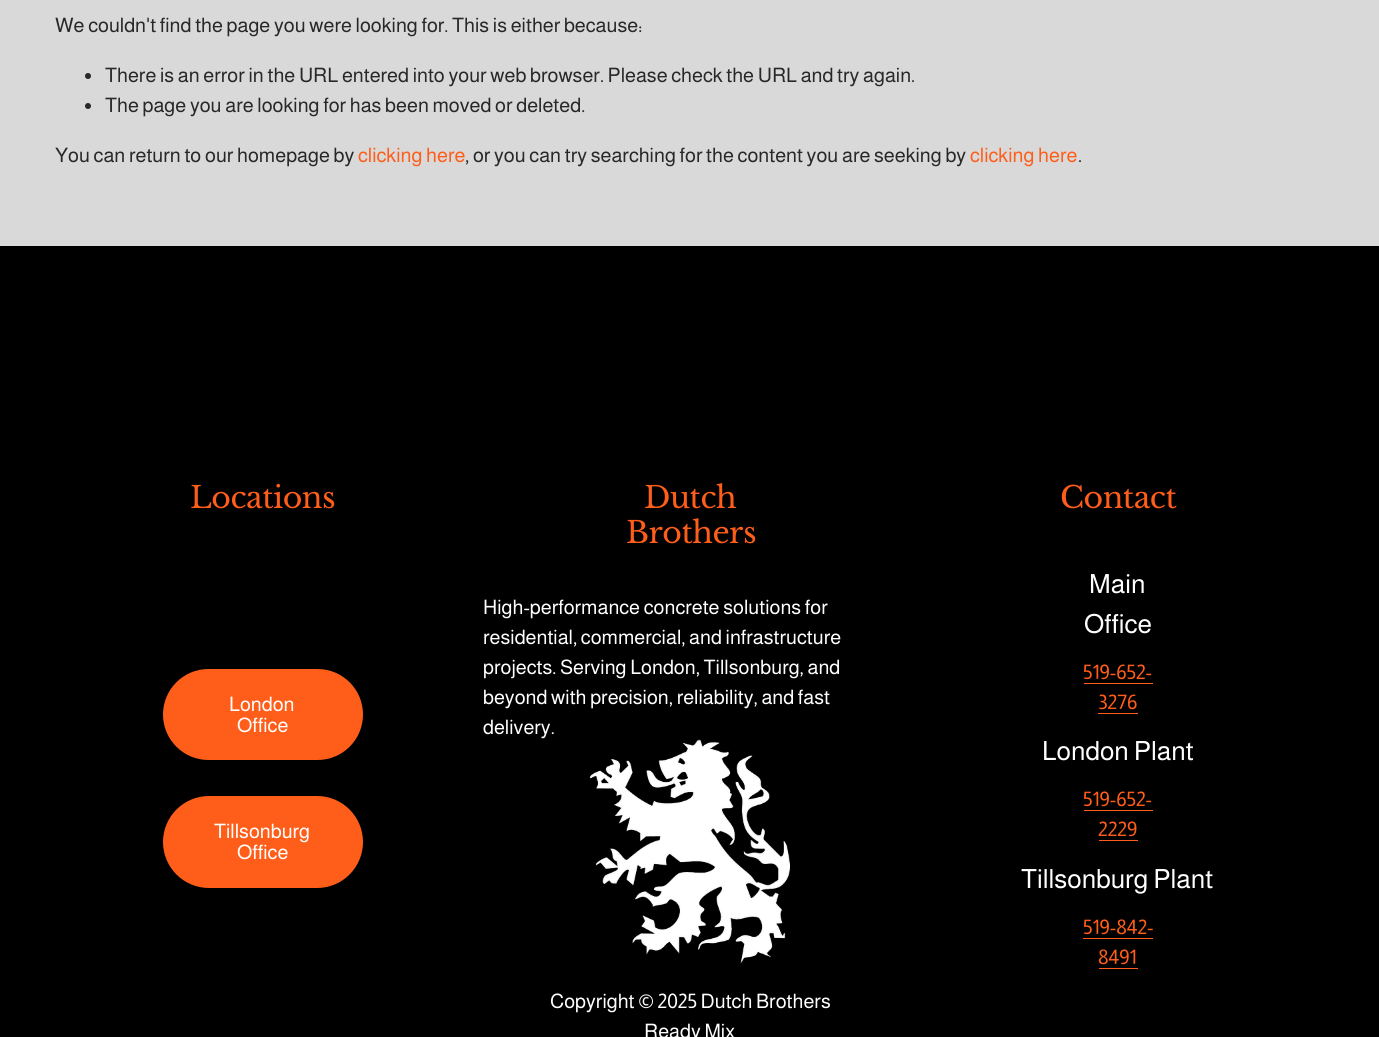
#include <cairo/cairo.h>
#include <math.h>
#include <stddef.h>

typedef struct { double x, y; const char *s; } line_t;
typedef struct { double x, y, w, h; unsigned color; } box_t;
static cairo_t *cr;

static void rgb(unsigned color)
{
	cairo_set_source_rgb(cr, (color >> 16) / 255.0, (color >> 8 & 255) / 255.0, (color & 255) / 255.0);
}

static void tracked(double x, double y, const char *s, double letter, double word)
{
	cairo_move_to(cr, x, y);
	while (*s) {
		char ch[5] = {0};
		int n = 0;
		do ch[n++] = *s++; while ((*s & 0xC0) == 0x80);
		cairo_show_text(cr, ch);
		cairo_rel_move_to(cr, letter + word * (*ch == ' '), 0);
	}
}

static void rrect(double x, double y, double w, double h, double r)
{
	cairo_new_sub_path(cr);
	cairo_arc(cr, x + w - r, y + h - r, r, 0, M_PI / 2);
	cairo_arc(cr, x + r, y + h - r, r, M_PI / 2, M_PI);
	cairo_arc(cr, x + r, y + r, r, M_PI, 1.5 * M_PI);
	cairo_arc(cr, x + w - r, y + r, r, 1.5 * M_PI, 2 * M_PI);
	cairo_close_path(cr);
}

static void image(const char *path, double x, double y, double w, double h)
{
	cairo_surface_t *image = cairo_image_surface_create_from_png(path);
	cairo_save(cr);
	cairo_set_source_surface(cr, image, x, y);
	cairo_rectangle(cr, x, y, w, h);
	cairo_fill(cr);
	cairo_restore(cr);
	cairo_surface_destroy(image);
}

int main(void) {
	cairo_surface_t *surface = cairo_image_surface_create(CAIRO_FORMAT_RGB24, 1379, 1037);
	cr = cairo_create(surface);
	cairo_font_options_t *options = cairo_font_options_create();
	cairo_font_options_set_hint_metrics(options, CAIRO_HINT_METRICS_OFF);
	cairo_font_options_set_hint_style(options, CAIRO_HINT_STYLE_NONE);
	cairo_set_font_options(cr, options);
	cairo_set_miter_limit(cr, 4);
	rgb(0xdad9d9);
	cairo_paint(cr);
	rgb(0x282828);
	cairo_arc(cr, 88, 76, 3, 0, 2 * M_PI);
	cairo_fill(cr);
	cairo_arc(cr, 88, 106, 3, 0, 2 * M_PI);
	cairo_fill(cr);
	{
		static const box_t items[] = {
			{0, 246, 1379, 791, 0x000000},
			{1084, 683, 69, 1, 0xff5e1a},
			{1098, 713, 40, 1, 0xff5e1a},
		};
		for (size_t i = 0; i < sizeof items / sizeof *items; i++) {
			rgb(items[i].color);
			cairo_rectangle(cr, items[i].x, items[i].y, items[i].w, items[i].h);
			cairo_fill(cr);
		}
	}
	rrect(163, 669, 200, 91, 45.5);
	cairo_fill(cr);
	image("img/1.png", 590, 739, 200, 225);
	cairo_rectangle(cr, 1084, 810, 69, 1);
	cairo_fill(cr);
	cairo_rectangle(cr, 1099, 840, 39, 1);
	cairo_fill(cr);
	rrect(163, 796, 200, 92, 46);
	cairo_fill(cr);
	cairo_rectangle(cr, 1083, 938, 70, 1);
	cairo_fill(cr);
	cairo_rectangle(cr, 1099, 968, 39, 1);
	cairo_fill(cr);
	cairo_select_font_face(cr, "Almarai", CAIRO_FONT_SLANT_NORMAL, CAIRO_FONT_WEIGHT_NORMAL);
	cairo_set_font_size(cr, 20);
	rgb(0x282828);
	{
		static const line_t items[] = {
			{55, 32, "We couldn't find the page you were looking for. This is either because:"},
			{105, 82, "There is an error in the URL entered into your web browser. Please check the URL and try again."},
			{105, 112, "The page you are looking for has been moved or deleted."},
			{55, 162, "You can return to our homepage by"},
		};
		for (size_t i = 0; i < sizeof items / sizeof *items; i++) {
			cairo_move_to(cr, items[i].x, items[i].y);
			cairo_show_text(cr, items[i].s);
		}
	}
	rgb(0xff5e1a);
	cairo_move_to(cr, 358, 162);
	cairo_show_text(cr, "clicking here");
	rgb(0x282828);
	cairo_move_to(cr, 465, 162);
	cairo_show_text(cr, ", or you can try searching for the content you are seeking by");
	rgb(0xff5e1a);
	cairo_move_to(cr, 970, 162);
	cairo_show_text(cr, "clicking here");
	rgb(0x282828);
	cairo_move_to(cr, 1078, 162);
	cairo_show_text(cr, ".");
	cairo_select_font_face(cr, "Libre Baskerville", CAIRO_FONT_SLANT_NORMAL, CAIRO_FONT_WEIGHT_NORMAL);
	cairo_set_font_size(cr, 30);
	rgb(0xff5e1a);
	{
		static const line_t items[] = {
			{190, 508, "Locations"},
			{644, 508, "Dutch"},
			{626, 543, "Brothers"},
			{1060, 508, "Contact"},
		};
		for (size_t i = 0; i < sizeof items / sizeof *items; i++) {
			tracked(items[i].x, items[i].y, items[i].s, -0.5, 0);
		}
	}
	cairo_select_font_face(cr, "Almarai", CAIRO_FONT_SLANT_NORMAL, CAIRO_FONT_WEIGHT_NORMAL);
	cairo_set_font_size(cr, 20);
	rgb(0xffffff);
	{
		static const line_t items[] = {
			{483, 614, "High-performance concrete solutions for"},
			{483, 644, "residential, commercial, and infrastructure"},
			{483, 674, "projects. Serving London, Tillsonburg, and"},
			{483, 704, "beyond with precision, reliability, and fast"},
			{483, 734, "delivery."},
		};
		for (size_t i = 0; i < sizeof items / sizeof *items; i++) {
			cairo_move_to(cr, items[i].x, items[i].y);
			cairo_show_text(cr, items[i].s);
		}
	}
	cairo_set_font_size(cr, 26.5);
	cairo_move_to(cr, 1089, 593);
	cairo_show_text(cr, "Main");
	cairo_move_to(cr, 1084, 633);
	cairo_show_text(cr, "Office");
	cairo_set_font_size(cr, 20);
	rgb(0xff5e1a);
	cairo_move_to(cr, 1083, 679);
	cairo_show_text(cr, "519-652-");
	cairo_move_to(cr, 1098, 709);
	cairo_show_text(cr, "3276");
	rgb(0xffffff);
	cairo_move_to(cr, 229, 711);
	cairo_show_text(cr, "London");
	cairo_move_to(cr, 237, 732);
	cairo_show_text(cr, "Office");
	cairo_set_font_size(cr, 26.5);
	cairo_move_to(cr, 1042, 760);
	cairo_show_text(cr, "London Plant");
	cairo_set_font_size(cr, 20);
	rgb(0xff5e1a);
	cairo_move_to(cr, 1083, 806);
	cairo_show_text(cr, "519-652-");
	cairo_move_to(cr, 1098, 836);
	cairo_show_text(cr, "2229");
	rgb(0xffffff);
	cairo_move_to(cr, 214, 838);
	cairo_show_text(cr, "Tillsonburg");
	cairo_move_to(cr, 237, 859);
	cairo_show_text(cr, "Office");
	cairo_set_font_size(cr, 26.5);
	cairo_move_to(cr, 1021, 888);
	cairo_show_text(cr, "Tillsonburg Plant");
	cairo_set_font_size(cr, 20);
	rgb(0xff5e1a);
	cairo_move_to(cr, 1083, 934);
	cairo_show_text(cr, "519-842-");
	cairo_move_to(cr, 1098, 964);
	cairo_show_text(cr, "8491");
	rgb(0xffffff);
	cairo_move_to(cr, 550, 1008);
	cairo_show_text(cr, "Copyright © 2025 Dutch Brothers");
	cairo_move_to(cr, 644, 1038);
	cairo_show_text(cr, "Ready Mix");
	cairo_surface_write_to_png(surface, "page.png");
	cairo_font_options_destroy(options);
	cairo_destroy(cr);
	cairo_surface_destroy(surface);
	return 0;
}
